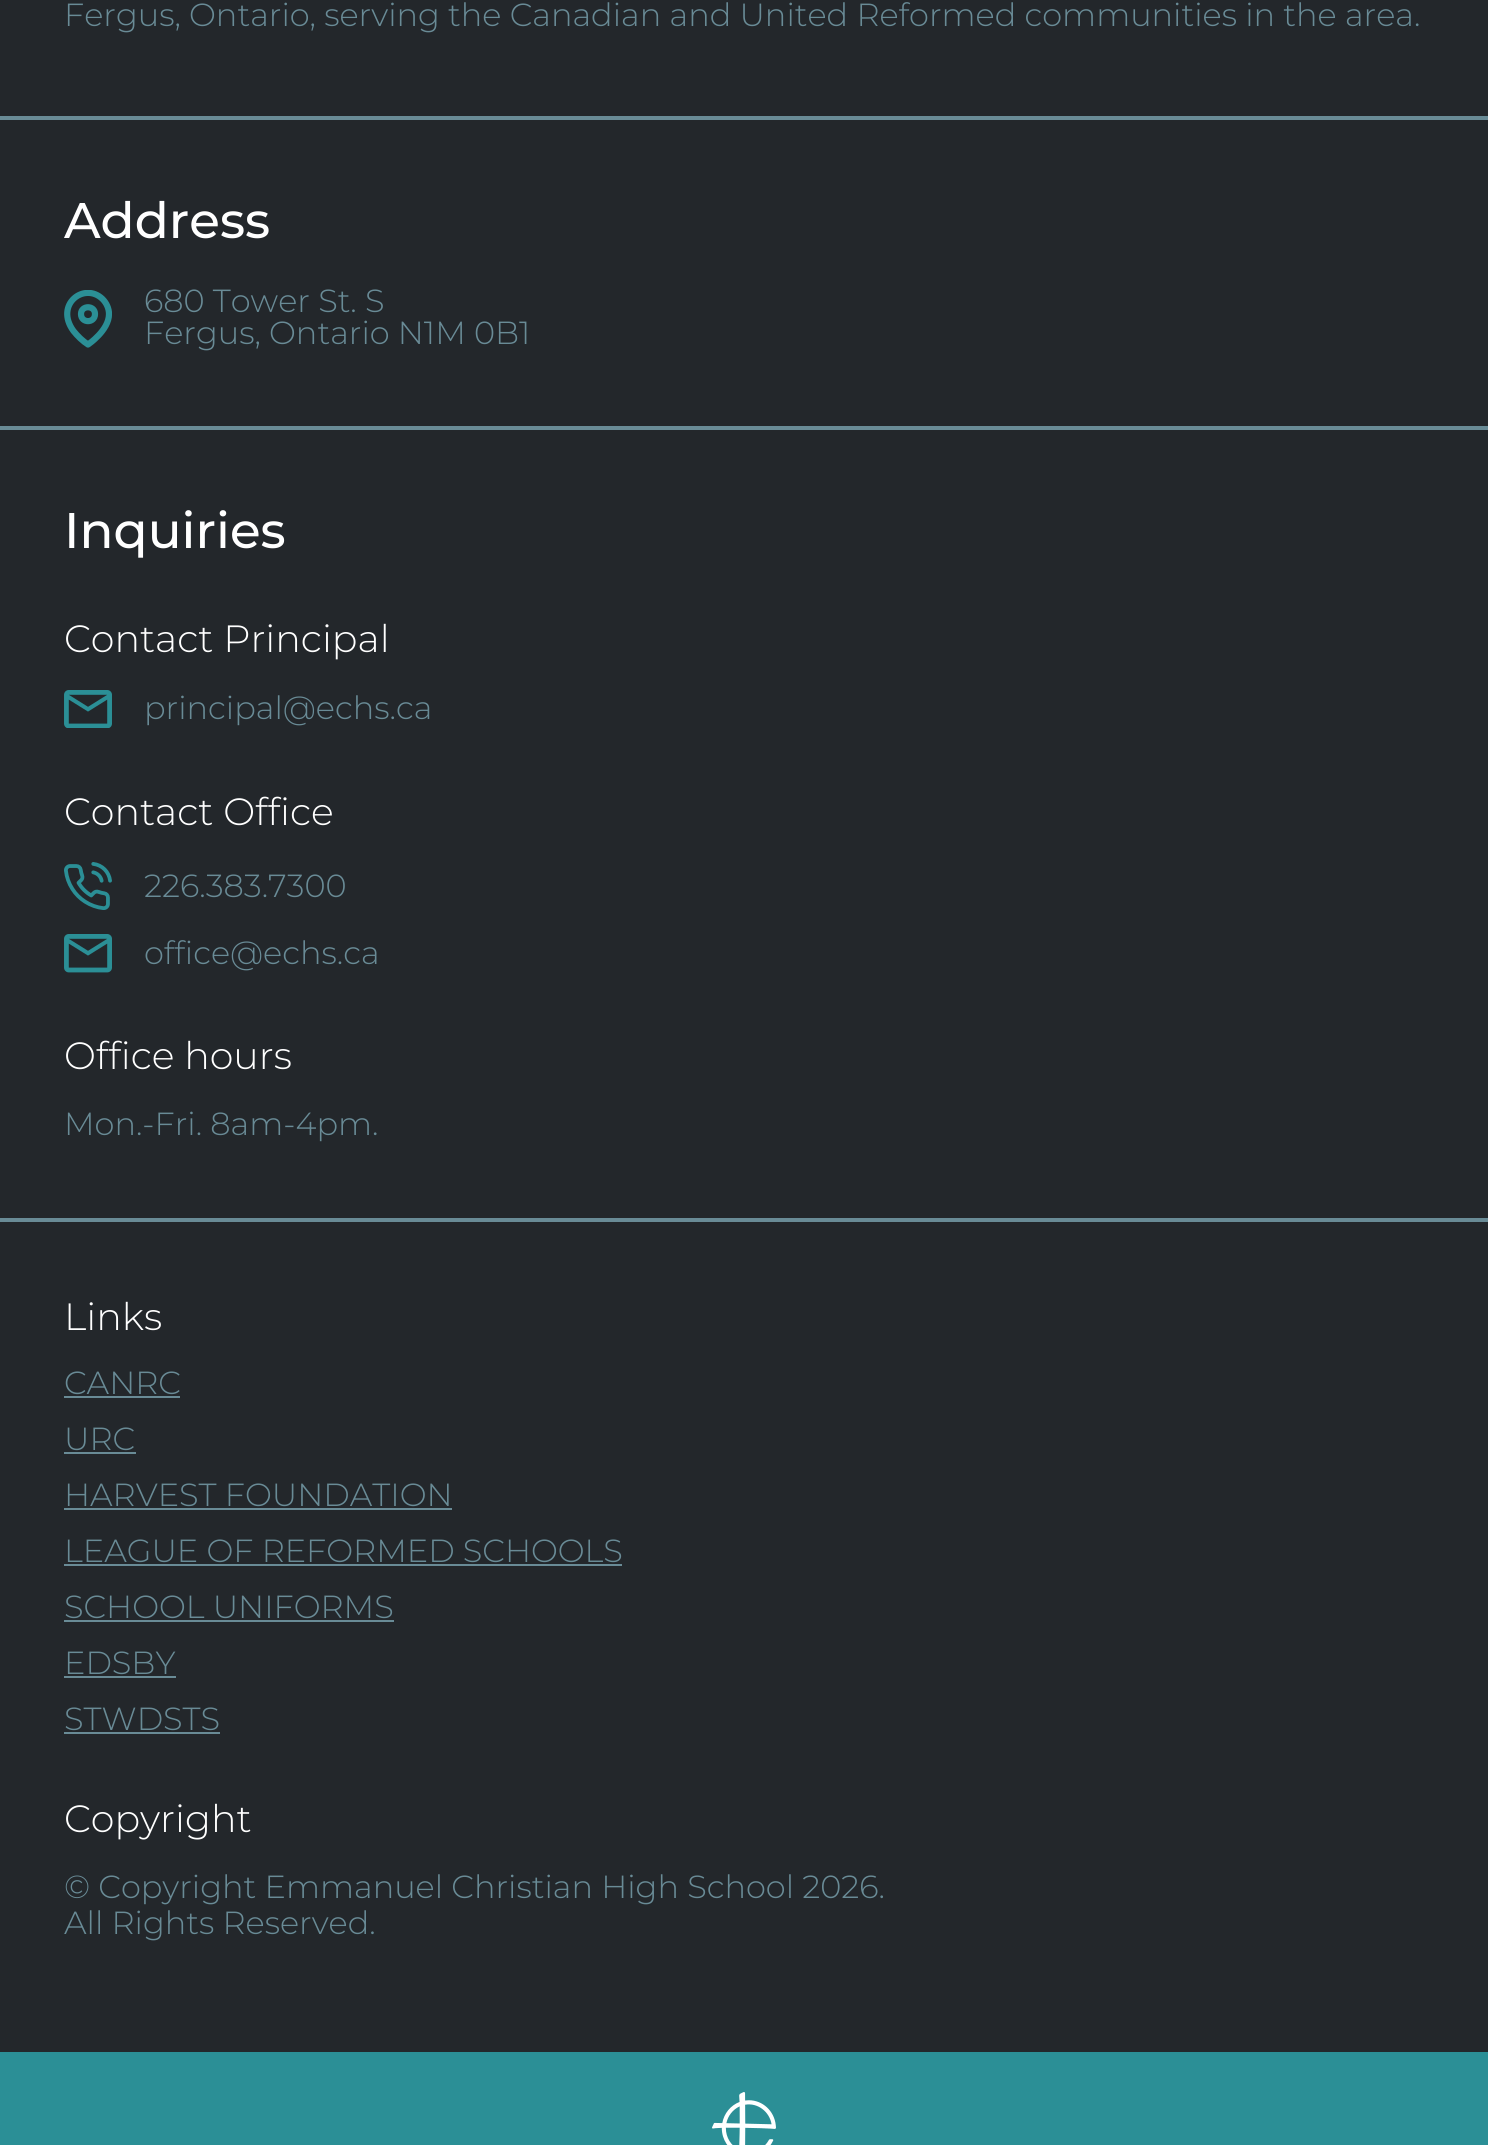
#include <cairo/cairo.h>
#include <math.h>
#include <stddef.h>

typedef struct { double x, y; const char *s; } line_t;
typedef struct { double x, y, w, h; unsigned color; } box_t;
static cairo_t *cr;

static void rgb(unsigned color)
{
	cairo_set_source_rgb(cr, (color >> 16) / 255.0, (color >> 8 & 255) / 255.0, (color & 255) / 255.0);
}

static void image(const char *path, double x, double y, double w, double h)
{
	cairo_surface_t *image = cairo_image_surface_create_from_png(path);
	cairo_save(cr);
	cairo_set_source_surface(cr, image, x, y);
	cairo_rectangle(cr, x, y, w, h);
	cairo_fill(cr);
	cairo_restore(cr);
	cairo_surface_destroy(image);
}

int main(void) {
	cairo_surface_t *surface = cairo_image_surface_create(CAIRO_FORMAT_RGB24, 1488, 2145);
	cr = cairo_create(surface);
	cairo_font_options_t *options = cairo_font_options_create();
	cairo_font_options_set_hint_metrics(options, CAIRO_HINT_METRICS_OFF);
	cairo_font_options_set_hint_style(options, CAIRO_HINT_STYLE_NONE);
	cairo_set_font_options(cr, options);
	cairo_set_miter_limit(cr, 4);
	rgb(0x23272b);
	cairo_paint(cr);
	rgb(0x698b96);
	cairo_rectangle(cr, 0, 116, 1488, 4);
	cairo_fill(cr);
	cairo_save(cr);
	cairo_rectangle(cr, 64, 290, 48, 58);
	cairo_clip(cr);
	cairo_new_path(cr);
	cairo_move_to(cr, 109, 314);
	cairo_curve_to(cr, 109, 330.5, 88, 344.5, 88, 344.5);
	cairo_curve_to(cr, 82.5, 341, 77.5, 336, 73.5, 331);
	cairo_curve_to(cr, 54, 304.5, 84.5, 281.5, 102.5, 299);
	cairo_curve_to(cr, 106.5, 303, 109, 308.5, 109, 314);
	cairo_close_path(cr);
	rgb(0x2b8f96);
	cairo_set_line_width(cr, 6.2);
	cairo_set_line_cap(cr, CAIRO_LINE_CAP_ROUND);
	cairo_set_line_join(cr, CAIRO_LINE_JOIN_ROUND);
	cairo_stroke(cr);
	cairo_restore(cr);
	cairo_new_path(cr);
	cairo_move_to(cr, 95, 314);
	cairo_curve_to(cr, 95, 323.5, 81, 323.5, 81, 314);
	cairo_curve_to(cr, 81, 305, 95, 305, 95, 314);
	cairo_close_path(cr);
	rgb(0x2b8f96);
	cairo_set_line_width(cr, 6.2);
	cairo_set_line_cap(cr, CAIRO_LINE_CAP_ROUND);
	cairo_set_line_join(cr, CAIRO_LINE_JOIN_ROUND);
	cairo_stroke(cr);
	rgb(0x698b96);
	cairo_rectangle(cr, 0, 426, 1488, 4);
	cairo_fill(cr);
	image("img/1.png", 64, 690, 48, 38);
	image("img/2.png", 64, 862, 48, 48);
	image("img/3.png", 64, 934, 48, 39);
	{
		static const box_t items[] = {
			{0, 1218, 1488, 4, 0x698b96},
			{64, 1396, 116, 2, 0x698b96},
			{64, 1452, 72, 2, 0x698b96},
			{64, 1508, 388, 2, 0x698b96},
			{64, 1564, 558, 2, 0x698b96},
			{64, 1620, 330, 2, 0x698b96},
			{64, 1676, 112, 2, 0x698b96},
			{64, 1732, 156, 2, 0x698b96},
			{0, 2052, 1488, 93, 0x2b8f96},
		};
		for (size_t i = 0; i < sizeof items / sizeof *items; i++) {
			rgb(items[i].color);
			cairo_rectangle(cr, items[i].x, items[i].y, items[i].w, items[i].h);
			cairo_fill(cr);
		}
	}
	image("img/4.png", 712, 2092, 64, 53);
	cairo_select_font_face(cr, "Montserrat Light", CAIRO_FONT_SLANT_NORMAL, CAIRO_FONT_WEIGHT_NORMAL);
	cairo_set_font_size(cr, 32);
	rgb(0x698b96);
	cairo_move_to(cr, 64, 26);
	cairo_show_text(cr, "Fergus, Ontario, serving the Canadian and United Reformed communities in the area.");
	cairo_select_font_face(cr, "Montserrat Medium", CAIRO_FONT_SLANT_NORMAL, CAIRO_FONT_WEIGHT_NORMAL);
	cairo_set_font_size(cr, 50);
	rgb(0xffffff);
	cairo_move_to(cr, 64, 238);
	cairo_show_text(cr, "Address");
	cairo_select_font_face(cr, "Montserrat Light", CAIRO_FONT_SLANT_NORMAL, CAIRO_FONT_WEIGHT_NORMAL);
	cairo_set_font_size(cr, 32);
	rgb(0x698b96);
	cairo_move_to(cr, 144, 312);
	cairo_show_text(cr, "680 Tower St. S");
	cairo_move_to(cr, 144, 344);
	cairo_show_text(cr, "Fergus, Ontario N1M 0B1");
	cairo_select_font_face(cr, "Montserrat Medium", CAIRO_FONT_SLANT_NORMAL, CAIRO_FONT_WEIGHT_NORMAL);
	cairo_set_font_size(cr, 50);
	rgb(0xffffff);
	cairo_move_to(cr, 64, 548);
	cairo_show_text(cr, "Inquiries");
	cairo_select_font_face(cr, "Montserrat Light", CAIRO_FONT_SLANT_NORMAL, CAIRO_FONT_WEIGHT_NORMAL);
	cairo_set_font_size(cr, 38);
	cairo_move_to(cr, 64, 652);
	cairo_show_text(cr, "Contact Principal");
	cairo_set_font_size(cr, 32);
	rgb(0x698b96);
	cairo_move_to(cr, 144, 719);
	cairo_show_text(cr, "principal@echs.ca");
	cairo_set_font_size(cr, 38);
	rgb(0xffffff);
	cairo_move_to(cr, 64, 825);
	cairo_show_text(cr, "Contact Office");
	cairo_set_font_size(cr, 32);
	rgb(0x698b96);
	cairo_move_to(cr, 144, 897);
	cairo_show_text(cr, "226.383.7300");
	cairo_move_to(cr, 144, 964);
	cairo_show_text(cr, "office@echs.ca");
	cairo_set_font_size(cr, 38);
	rgb(0xffffff);
	cairo_move_to(cr, 64, 1069);
	cairo_show_text(cr, "Office hours");
	cairo_set_font_size(cr, 32);
	rgb(0x698b96);
	cairo_move_to(cr, 64, 1135);
	cairo_show_text(cr, "Mon.-Fri. 8am-4pm.");
	cairo_set_font_size(cr, 38);
	rgb(0xffffff);
	cairo_move_to(cr, 64, 1330);
	cairo_show_text(cr, "Links");
	cairo_set_font_size(cr, 32);
	rgb(0x698b96);
	{
		static const line_t items[] = {
			{64, 1394, "CANRC"},
			{64, 1450, "URC"},
			{64, 1506, "HARVEST FOUNDATION"},
			{64, 1562, "LEAGUE OF REFORMED SCHOOLS"},
			{64, 1618, "SCHOOL UNIFORMS"},
			{64, 1674, "EDSBY"},
			{64, 1730, "STWDSTS"},
		};
		for (size_t i = 0; i < sizeof items / sizeof *items; i++) {
			cairo_move_to(cr, items[i].x, items[i].y);
			cairo_show_text(cr, items[i].s);
		}
	}
	cairo_set_font_size(cr, 38);
	rgb(0xffffff);
	cairo_move_to(cr, 64, 1832);
	cairo_show_text(cr, "Copyright");
	cairo_set_font_size(cr, 32);
	rgb(0x698b96);
	cairo_move_to(cr, 64, 1898);
	cairo_show_text(cr, "© Copyright Emmanuel Christian High School 2026.");
	cairo_move_to(cr, 64, 1934);
	cairo_show_text(cr, "All Rights Reserved.");
	cairo_surface_write_to_png(surface, "page.png");
	cairo_font_options_destroy(options);
	cairo_destroy(cr);
	cairo_surface_destroy(surface);
	return 0;
}
